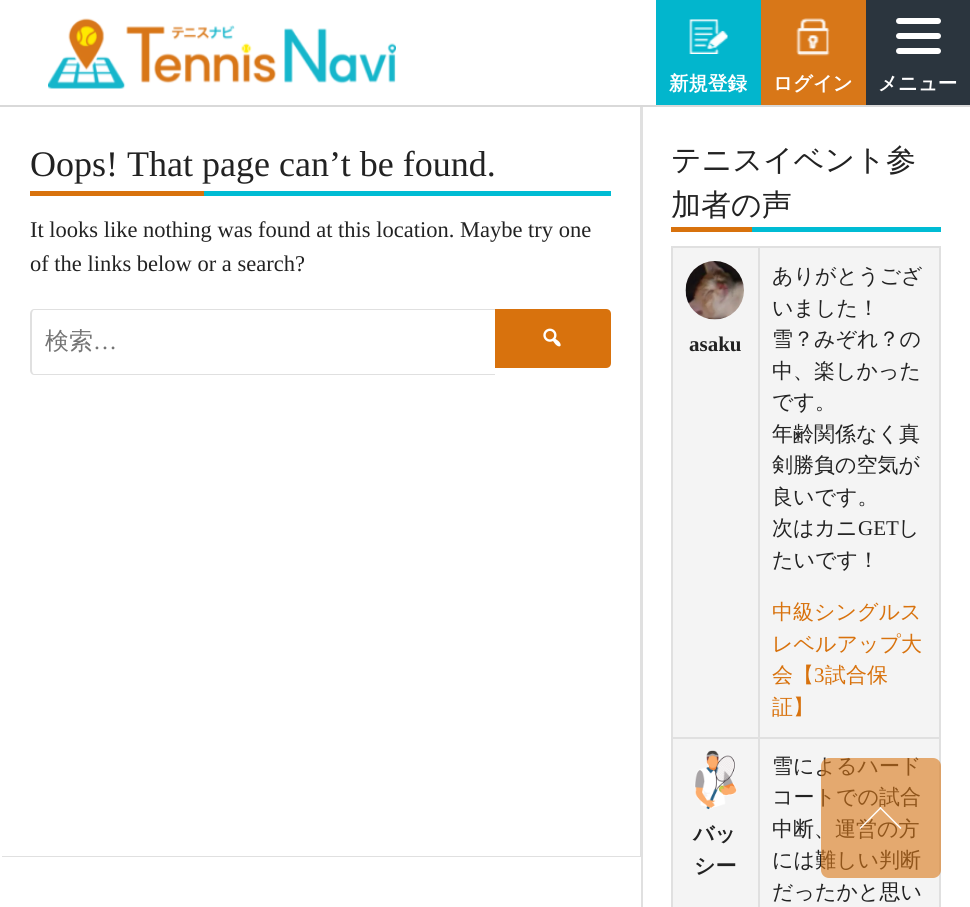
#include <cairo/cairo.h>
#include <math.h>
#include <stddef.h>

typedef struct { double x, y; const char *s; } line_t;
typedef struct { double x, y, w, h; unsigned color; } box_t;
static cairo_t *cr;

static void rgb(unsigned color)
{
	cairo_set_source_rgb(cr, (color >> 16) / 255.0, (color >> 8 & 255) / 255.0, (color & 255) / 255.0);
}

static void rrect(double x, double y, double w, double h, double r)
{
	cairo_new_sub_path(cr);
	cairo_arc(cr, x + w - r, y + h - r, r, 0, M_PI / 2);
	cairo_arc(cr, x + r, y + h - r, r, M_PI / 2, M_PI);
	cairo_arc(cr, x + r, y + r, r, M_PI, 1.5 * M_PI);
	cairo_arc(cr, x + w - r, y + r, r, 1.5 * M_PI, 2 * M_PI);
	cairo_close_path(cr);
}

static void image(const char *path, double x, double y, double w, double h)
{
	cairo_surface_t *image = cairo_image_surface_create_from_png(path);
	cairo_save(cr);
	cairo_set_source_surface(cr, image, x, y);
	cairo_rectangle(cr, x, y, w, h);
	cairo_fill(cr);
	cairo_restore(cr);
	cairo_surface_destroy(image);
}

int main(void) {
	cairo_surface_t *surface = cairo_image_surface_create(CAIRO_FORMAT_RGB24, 970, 907);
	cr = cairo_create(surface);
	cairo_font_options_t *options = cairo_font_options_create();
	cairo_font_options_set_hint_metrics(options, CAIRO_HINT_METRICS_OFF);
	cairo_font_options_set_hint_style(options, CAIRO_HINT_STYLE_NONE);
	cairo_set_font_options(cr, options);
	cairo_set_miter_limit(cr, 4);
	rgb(0xffffff);
	cairo_paint(cr);
	rgb(0xd9d9d9);
	cairo_rectangle(cr, 0, 105, 970, 2);
	cairo_fill(cr);
	image("img/1.png", 48, 18, 348, 71);
	rgb(0x02b6cd);
	cairo_rectangle(cr, 656, 0, 105, 105);
	cairo_fill(cr);
	image("img/2.png", 689, 19, 39, 35);
	rgb(0xd87718);
	cairo_rectangle(cr, 761, 0, 105, 105);
	cairo_fill(cr);
	image("img/3.png", 796, 18, 34, 38);
	rgb(0x2b353e);
	cairo_rectangle(cr, 866, 0, 104, 105);
	cairo_fill(cr);
	rgb(0xffffff);
	rrect(896, 18, 45, 6, 3);
	cairo_fill(cr);
	rrect(896, 33, 45, 6, 3);
	cairo_fill(cr);
	rrect(896, 48, 45, 6, 3);
	cairo_fill(cr);
	rgb(0xe0e0e0);
	cairo_new_path(cr);
	cairo_move_to(cr, 2, 856);
	cairo_line_to(cr, 2, 857);
	cairo_line_to(cr, 642, 857);
	cairo_line_to(cr, 642, 107);
	cairo_line_to(cr, 640, 107);
	cairo_line_to(cr, 640, 856);
	cairo_close_path(cr);
	cairo_fill(cr);
	rgb(0x00bcd4);
	cairo_rectangle(cr, 204, 191, 407, 5);
	cairo_fill(cr);
	rgb(0xd8720d);
	cairo_rectangle(cr, 30, 191, 174, 5);
	cairo_fill(cr);
	rgb(0xe0e0e0);
	cairo_set_fill_rule(cr, CAIRO_FILL_RULE_EVEN_ODD);
	cairo_new_path(cr);
	cairo_move_to(cr, 34, 309);
	cairo_line_to(cr, 495, 309);
	cairo_line_to(cr, 495, 375);
	cairo_line_to(cr, 34, 375);
	cairo_curve_to(cr, 32, 375, 30, 373, 30, 370);
	cairo_line_to(cr, 30, 314);
	cairo_curve_to(cr, 30, 311, 32, 309, 34, 309);
	cairo_close_path(cr);
	cairo_move_to(cr, 34, 310);
	cairo_line_to(cr, 495, 310);
	cairo_line_to(cr, 495, 374);
	cairo_line_to(cr, 34, 374);
	cairo_curve_to(cr, 33, 374, 32, 372, 32, 370);
	cairo_line_to(cr, 32, 314);
	cairo_curve_to(cr, 32, 312, 33, 310, 34, 310);
	cairo_close_path(cr);
	cairo_fill(cr);
	rgb(0xd8720d);
	cairo_new_path(cr);
	cairo_move_to(cr, 495, 309);
	cairo_line_to(cr, 606, 309);
	cairo_curve_to(cr, 609, 309, 611, 311, 611, 314);
	cairo_line_to(cr, 611, 363);
	cairo_curve_to(cr, 611, 366, 609, 368, 606, 368);
	cairo_line_to(cr, 495, 368);
	cairo_close_path(cr);
	cairo_fill(cr);
	image("img/4.png", 543, 328, 18, 19);
	{
		static const box_t items[] = {
			{641, 107, 2, 800, 0xe0e0e0},
			{752, 227, 189, 5, 0x00bcd4},
			{671, 227, 81, 5, 0xd8720d},
			{673, 248, 266, 659, 0xf4f4f4},
			{671, 246, 270, 2, 0xe0e0e0},
			{939, 246, 2, 661, 0xe0e0e0},
			{671, 246, 2, 661, 0xe0e0e0},
		};
		for (size_t i = 0; i < sizeof items / sizeof *items; i++) {
			rgb(items[i].color);
			cairo_rectangle(cr, items[i].x, items[i].y, items[i].w, items[i].h);
			cairo_fill(cr);
		}
	}
	image("img/5.png", 685, 261, 59, 59);
	{
		static const box_t items[] = {
			{758, 737, 183, 2, 0xe0e0e0},
			{758, 737, 2, 170, 0xe0e0e0},
			{671, 737, 88, 2, 0xe0e0e0},
			{758, 246, 2, 492, 0xe0e0e0},
		};
		for (size_t i = 0; i < sizeof items / sizeof *items; i++) {
			rgb(items[i].color);
			cairo_rectangle(cr, items[i].x, items[i].y, items[i].w, items[i].h);
			cairo_fill(cr);
		}
	}
	image("img/6.png", 694, 750, 43, 60);
	cairo_select_font_face(cr, "WenQuanYi Zen Hei", CAIRO_FONT_SLANT_NORMAL, CAIRO_FONT_WEIGHT_BOLD);
	cairo_set_font_size(cr, 19.5);
	rgb(0xffffff);
	{
		static const line_t items[] = {
			{669, 90, "新規登録"},
			{773, 90, "ログイン"},
			{878, 90, "メニュー"},
		};
		for (size_t i = 0; i < sizeof items / sizeof *items; i++) {
			cairo_move_to(cr, items[i].x, items[i].y);
			cairo_show_text(cr, items[i].s);
		}
	}
	cairo_select_font_face(cr, "Liberation Serif", CAIRO_FONT_SLANT_NORMAL, CAIRO_FONT_WEIGHT_NORMAL);
	cairo_set_font_size(cr, 36);
	rgb(0x222222);
	cairo_move_to(cr, 30, 176);
	cairo_show_text(cr, "Oops! That page can’t be found.");
	cairo_set_font_size(cr, 22.5);
	cairo_move_to(cr, 30, 237);
	cairo_show_text(cr, "It looks like nothing was found at this location. Maybe try one");
	cairo_move_to(cr, 30, 271);
	cairo_show_text(cr, "of the links below or a search?");
	cairo_select_font_face(cr, "WenQuanYi Zen Hei Medium", CAIRO_FONT_SLANT_NORMAL, CAIRO_FONT_WEIGHT_NORMAL);
	cairo_set_font_size(cr, 24);
	rgb(0x757575);
	cairo_move_to(cr, 45, 349);
	cairo_show_text(cr, "検索");
	cairo_select_font_face(cr, "Liberation Serif", CAIRO_FONT_SLANT_NORMAL, CAIRO_FONT_WEIGHT_NORMAL);
	cairo_move_to(cr, 93, 349);
	cairo_show_text(cr, "…");
	cairo_select_font_face(cr, "WenQuanYi Zen Hei Medium", CAIRO_FONT_SLANT_NORMAL, CAIRO_FONT_WEIGHT_NORMAL);
	cairo_set_font_size(cr, 30);
	rgb(0x222222);
	cairo_move_to(cr, 671, 170);
	cairo_show_text(cr, "テニスイベント参");
	cairo_move_to(cr, 671, 215);
	cairo_show_text(cr, "加者の声");
	cairo_select_font_face(cr, "Liberation Serif", CAIRO_FONT_SLANT_NORMAL, CAIRO_FONT_WEIGHT_BOLD);
	cairo_set_font_size(cr, 21);
	cairo_move_to(cr, 689, 351);
	cairo_show_text(cr, "asaku");
	cairo_select_font_face(cr, "WenQuanYi Zen Hei Medium", CAIRO_FONT_SLANT_NORMAL, CAIRO_FONT_WEIGHT_NORMAL);
	{
		static const line_t items[] = {
			{772, 283, "ありがとうござ"},
			{772, 315, "いました！"},
			{772, 346, "雪？みぞれ？の"},
			{772, 378, "中、楽しかった"},
			{772, 409, "です。"},
			{772, 441, "年齢関係なく真"},
			{772, 472, "剣勝負の空気が"},
			{772, 504, "良いです。"},
			{772, 535, "次はカニ"},
		};
		for (size_t i = 0; i < sizeof items / sizeof *items; i++) {
			cairo_move_to(cr, items[i].x, items[i].y);
			cairo_show_text(cr, items[i].s);
		}
	}
	cairo_select_font_face(cr, "Liberation Serif", CAIRO_FONT_SLANT_NORMAL, CAIRO_FONT_WEIGHT_NORMAL);
	cairo_move_to(cr, 858, 535);
	cairo_show_text(cr, "GET");
	cairo_select_font_face(cr, "WenQuanYi Zen Hei Medium", CAIRO_FONT_SLANT_NORMAL, CAIRO_FONT_WEIGHT_NORMAL);
	cairo_move_to(cr, 898, 535);
	cairo_show_text(cr, "し");
	cairo_move_to(cr, 772, 567);
	cairo_show_text(cr, "たいです！");
	rgb(0xd8720d);
	{
		static const line_t items[] = {
			{772, 619, "中級シングルス"},
			{772, 651, "レベルアップ大"},
			{772, 682, "会【"},
		};
		for (size_t i = 0; i < sizeof items / sizeof *items; i++) {
			cairo_move_to(cr, items[i].x, items[i].y);
			cairo_show_text(cr, items[i].s);
		}
	}
	cairo_select_font_face(cr, "Liberation Serif", CAIRO_FONT_SLANT_NORMAL, CAIRO_FONT_WEIGHT_NORMAL);
	cairo_move_to(cr, 814, 682);
	cairo_show_text(cr, "3");
	cairo_select_font_face(cr, "WenQuanYi Zen Hei Medium", CAIRO_FONT_SLANT_NORMAL, CAIRO_FONT_WEIGHT_NORMAL);
	cairo_move_to(cr, 825, 682);
	cairo_show_text(cr, "試合保");
	cairo_move_to(cr, 772, 714);
	cairo_show_text(cr, "証】");
	cairo_select_font_face(cr, "WenQuanYi Zen Hei", CAIRO_FONT_SLANT_NORMAL, CAIRO_FONT_WEIGHT_BOLD);
	rgb(0x222222);
	cairo_move_to(cr, 693, 841);
	cairo_show_text(cr, "バッ");
	cairo_move_to(cr, 694, 873);
	cairo_show_text(cr, "シー");
	cairo_select_font_face(cr, "WenQuanYi Zen Hei Medium", CAIRO_FONT_SLANT_NORMAL, CAIRO_FONT_WEIGHT_NORMAL);
	{
		static const line_t items[] = {
			{772, 773, "雪によるハード"},
			{772, 804, "コートでの試合"},
			{772, 836, "中断、運営の方"},
			{772, 867, "には難しい判断"},
			{772, 899, "だったかと思い"},
		};
		for (size_t i = 0; i < sizeof items / sizeof *items; i++) {
			cairo_move_to(cr, items[i].x, items[i].y);
			cairo_show_text(cr, items[i].s);
		}
	}
	cairo_set_source_rgba(cr, 0.847, 0.467, 0.09, 0.6);
	rrect(821, 758, 120, 120, 8);
	cairo_fill(cr);
	rgb(0xffffff);
	cairo_set_fill_rule(cr, CAIRO_FILL_RULE_WINDING);
	cairo_new_path(cr);
	cairo_move_to(cr, 880.5, 807);
	cairo_line_to(cr, 901.5, 828);
	cairo_line_to(cr, 900.5, 829);
	cairo_line_to(cr, 879.5, 808);
	cairo_close_path(cr);
	cairo_fill(cr);
	cairo_new_path(cr);
	cairo_move_to(cr, 880.5, 807);
	cairo_line_to(cr, 881.5, 808);
	cairo_line_to(cr, 860.5, 829);
	cairo_line_to(cr, 859.5, 828);
	cairo_close_path(cr);
	cairo_fill(cr);
	cairo_surface_write_to_png(surface, "page.png");
	cairo_font_options_destroy(options);
	cairo_destroy(cr);
	cairo_surface_destroy(surface);
	return 0;
}
